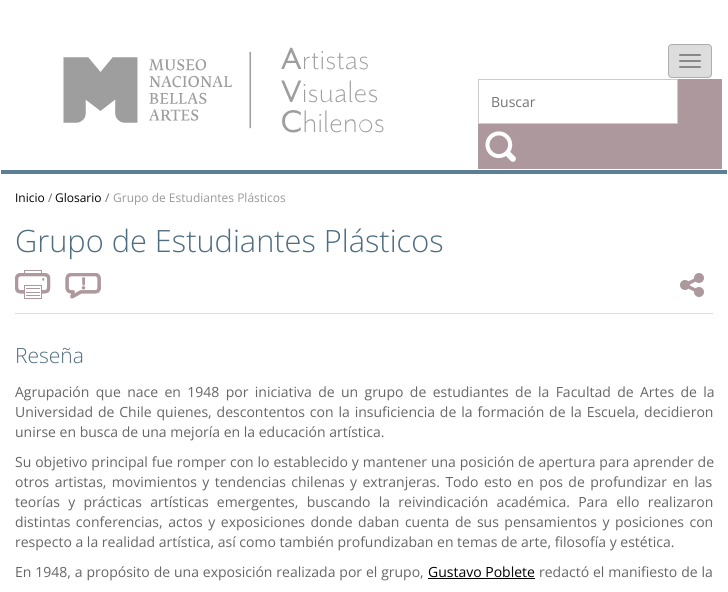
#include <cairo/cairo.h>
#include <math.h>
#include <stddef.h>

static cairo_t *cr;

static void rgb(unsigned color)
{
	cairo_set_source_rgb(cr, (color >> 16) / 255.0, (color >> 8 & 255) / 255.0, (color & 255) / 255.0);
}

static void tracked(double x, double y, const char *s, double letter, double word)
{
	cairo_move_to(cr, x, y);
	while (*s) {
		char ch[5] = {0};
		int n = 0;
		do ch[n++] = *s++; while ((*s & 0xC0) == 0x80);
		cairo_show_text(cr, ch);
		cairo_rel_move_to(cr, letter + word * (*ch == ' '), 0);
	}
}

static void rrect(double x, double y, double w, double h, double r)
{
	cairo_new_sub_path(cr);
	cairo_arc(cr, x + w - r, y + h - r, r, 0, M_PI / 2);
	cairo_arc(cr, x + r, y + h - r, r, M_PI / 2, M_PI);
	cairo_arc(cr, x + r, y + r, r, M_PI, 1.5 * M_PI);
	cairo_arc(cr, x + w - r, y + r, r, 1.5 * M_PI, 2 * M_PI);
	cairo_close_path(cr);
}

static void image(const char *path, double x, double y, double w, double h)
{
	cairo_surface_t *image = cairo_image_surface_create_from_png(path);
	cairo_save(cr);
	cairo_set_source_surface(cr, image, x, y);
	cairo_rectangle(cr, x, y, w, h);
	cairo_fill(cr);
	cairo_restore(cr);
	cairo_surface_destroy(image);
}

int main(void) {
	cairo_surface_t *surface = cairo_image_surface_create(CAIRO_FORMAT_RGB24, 728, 592);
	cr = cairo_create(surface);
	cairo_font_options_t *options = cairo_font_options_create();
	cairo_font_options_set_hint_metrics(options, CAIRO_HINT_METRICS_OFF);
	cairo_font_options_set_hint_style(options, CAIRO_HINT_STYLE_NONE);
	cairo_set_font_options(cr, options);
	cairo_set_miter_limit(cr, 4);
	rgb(0xffffff);
	cairo_paint(cr);
	rgb(0x5b7f95);
	cairo_rectangle(cr, 1, 170, 726, 4);
	cairo_fill(cr);
	rgb(0xdddddd);
	rrect(668.5, 44.5, 43, 33, 3.5);
	cairo_fill_preserve(cr);
	rgb(0xadadad);
	cairo_set_line_width(cr, 1);
	cairo_stroke(cr);
	rgb(0x888888);
	rrect(679, 54, 22, 2, 1);
	cairo_fill(cr);
	rrect(679, 60, 22, 2, 1);
	cairo_fill(cr);
	rrect(679, 66, 22, 2, 1);
	cairo_fill(cr);
	image("img/1.png", 63, 47, 321, 86);
	rgb(0xac989d);
	cairo_rectangle(cr, 478, 79, 244, 90);
	cairo_fill(cr);
	rgb(0xffffff);
	cairo_rectangle(cr, 478.5, 79.5, 199, 44);
	cairo_fill_preserve(cr);
	rgb(0xcccccc);
	cairo_stroke(cr);
	image("img/2.png", 485, 131, 31, 31);
	image("img/3.png", 15, 270, 36, 29);
	image("img/4.png", 65, 273, 36, 26);
	image("img/5.png", 680, 273, 24, 24);
	rgb(0xdddddd);
	cairo_rectangle(cr, 15, 313, 698, 1);
	cairo_fill(cr);
	rgb(0x000000);
	cairo_rectangle(cr, 428, 578, 107, 1);
	cairo_fill(cr);
	cairo_select_font_face(cr, "Open Sans", CAIRO_FONT_SLANT_NORMAL, CAIRO_FONT_WEIGHT_NORMAL);
	cairo_set_font_size(cr, 14);
	rgb(0x757575);
	cairo_move_to(cr, 491, 107);
	cairo_show_text(cr, "Buscar");
	cairo_set_font_size(cr, 12);
	rgb(0x000000);
	cairo_move_to(cr, 15, 202);
	cairo_show_text(cr, "Inicio");
	rgb(0x666666);
	cairo_move_to(cr, 48, 202);
	cairo_show_text(cr, "/");
	rgb(0x000000);
	cairo_move_to(cr, 55, 202);
	cairo_show_text(cr, "Glosario");
	rgb(0x666666);
	cairo_move_to(cr, 105, 202);
	cairo_show_text(cr, "/");
	rgb(0x999999);
	cairo_move_to(cr, 113, 202);
	cairo_show_text(cr, "Grupo de Estudiantes Plásticos");
	cairo_select_font_face(cr, "Open Sans Light", CAIRO_FONT_SLANT_NORMAL, CAIRO_FONT_WEIGHT_NORMAL);
	cairo_set_font_size(cr, 30.75);
	rgb(0x4f6d80);
	cairo_move_to(cr, 15, 252);
	cairo_show_text(cr, "Grupo de Estudiantes Plásticos");
	cairo_set_font_size(cr, 21);
	cairo_move_to(cr, 15, 363);
	cairo_show_text(cr, "Reseña");
	cairo_select_font_face(cr, "Open Sans", CAIRO_FONT_SLANT_NORMAL, CAIRO_FONT_WEIGHT_NORMAL);
	cairo_set_font_size(cr, 14);
	rgb(0x666666);
	tracked(15, 397, "Agrupación que nace en 1948 por iniciativa de un grupo de estudiantes de la Facultad de Artes de la", 0, 2.75);
	tracked(15, 417, "Universidad de Chile quienes, descontentos con la insuficiencia de la formación de la Escuela, decidieron", 0, 1.25);
	cairo_move_to(cr, 15, 437);
	cairo_show_text(cr, "unirse en busca de una mejoría en la educación artística.");
	tracked(15, 467, "Su objetivo principal fue romper con lo establecido y mantener una posición de apertura para aprender de", 0, 0.25);
	tracked(15, 487, "otros artistas, movimientos y tendencias chilenas y extranjeras. Todo esto en pos de profundizar en las", 0, 1.8);
	tracked(15, 507, "teorías y prácticas artísticas emergentes, buscando la reivindicación académica. Para ello realizaron", 0, 4.6);
	tracked(15, 527, "distintas conferencias, actos y exposiciones donde daban cuenta de sus pensamientos y posiciones con", 0, 1.9);
	cairo_move_to(cr, 15, 547);
	cairo_show_text(cr, "respecto a la realidad artística, así como también profundizaban en temas de arte, filosofía y estética.");
	tracked(15, 577, "En 1948, a propósito de una exposición realizada por el grupo,", 0, 0.25);
	rgb(0x000000);
	cairo_move_to(cr, 428, 577);
	cairo_show_text(cr, "Gustavo Poblete");
	rgb(0x666666);
	tracked(539, 577, "redactó el manifiesto de la", 0, 0.25);
	cairo_surface_write_to_png(surface, "page.png");
	cairo_font_options_destroy(options);
	cairo_destroy(cr);
	cairo_surface_destroy(surface);
	return 0;
}
